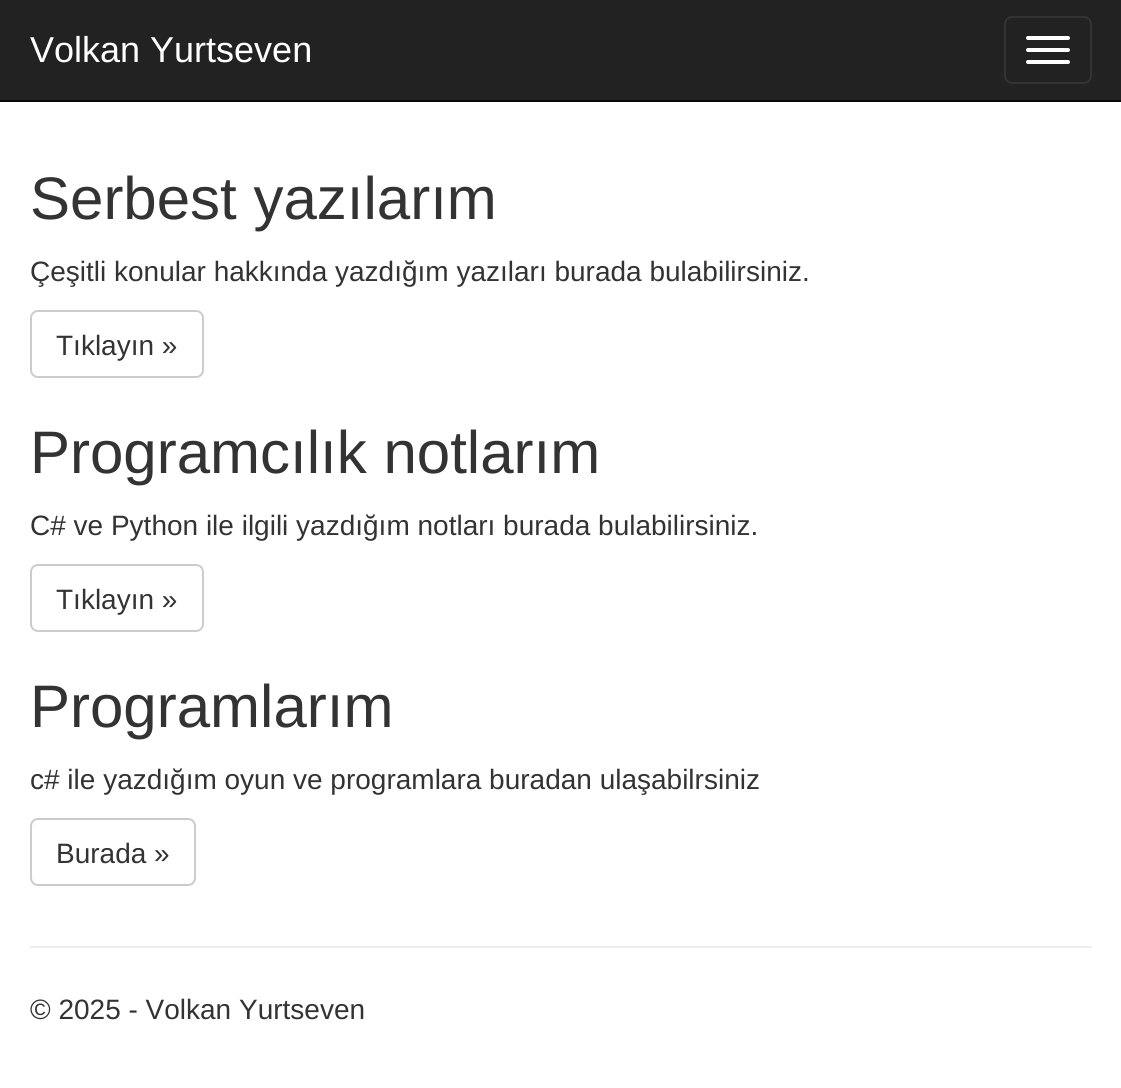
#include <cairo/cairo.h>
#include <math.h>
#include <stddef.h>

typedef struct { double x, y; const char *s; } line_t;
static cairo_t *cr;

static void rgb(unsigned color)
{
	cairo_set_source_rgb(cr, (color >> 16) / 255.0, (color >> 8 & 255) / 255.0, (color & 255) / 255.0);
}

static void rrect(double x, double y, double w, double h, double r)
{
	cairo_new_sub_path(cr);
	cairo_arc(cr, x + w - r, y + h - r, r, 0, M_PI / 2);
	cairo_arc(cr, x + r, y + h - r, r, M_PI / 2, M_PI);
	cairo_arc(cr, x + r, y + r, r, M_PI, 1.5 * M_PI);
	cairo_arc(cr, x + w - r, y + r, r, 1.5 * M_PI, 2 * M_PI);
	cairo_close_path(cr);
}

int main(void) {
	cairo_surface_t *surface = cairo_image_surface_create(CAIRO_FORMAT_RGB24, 1121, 1088);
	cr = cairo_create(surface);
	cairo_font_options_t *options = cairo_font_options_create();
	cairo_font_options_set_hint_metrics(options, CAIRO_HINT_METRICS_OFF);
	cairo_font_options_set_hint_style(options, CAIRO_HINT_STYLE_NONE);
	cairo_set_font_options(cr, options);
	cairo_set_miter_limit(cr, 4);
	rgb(0xffffff);
	cairo_paint(cr);
	rgb(0x222222);
	cairo_rectangle(cr, 0, 0, 1121, 100);
	cairo_fill(cr);
	rgb(0x080808);
	cairo_rectangle(cr, 0, 100, 1121, 2);
	cairo_fill(cr);
	rrect(1005, 17, 86, 66, 7);
	rgb(0x333333);
	cairo_stroke(cr);
	rgb(0xffffff);
	rrect(1026, 36, 44, 4, 2);
	cairo_fill(cr);
	rrect(1026, 48, 44, 4, 2);
	cairo_fill(cr);
	rrect(1026, 60, 44, 4, 2);
	cairo_fill(cr);
	rrect(31, 311, 172, 66, 7);
	rgb(0xcccccc);
	cairo_stroke(cr);
	rrect(31, 565, 172, 66, 7);
	cairo_stroke(cr);
	rrect(31, 819, 164, 66, 7);
	cairo_stroke(cr);
	rgb(0xeeeeee);
	cairo_rectangle(cr, 30, 946, 1062, 2);
	cairo_fill(cr);
	cairo_select_font_face(cr, "Liberation Sans", CAIRO_FONT_SLANT_NORMAL, CAIRO_FONT_WEIGHT_NORMAL);
	cairo_set_font_size(cr, 36);
	rgb(0xffffff);
	cairo_move_to(cr, 30, 62);
	cairo_show_text(cr, "Volkan Yurtseven");
	cairo_set_font_size(cr, 60);
	rgb(0x333333);
	cairo_move_to(cr, 30, 219);
	cairo_show_text(cr, "Serbest yazılarım");
	cairo_set_font_size(cr, 28);
	cairo_move_to(cr, 30, 281);
	cairo_show_text(cr, "Çeşitli konular hakkında yazdığım yazıları burada bulabilirsiniz.");
	cairo_move_to(cr, 56, 355);
	cairo_show_text(cr, "Tıklayın »");
	cairo_set_font_size(cr, 60);
	cairo_move_to(cr, 30, 473);
	cairo_show_text(cr, "Programcılık notlarım");
	cairo_set_font_size(cr, 28);
	cairo_move_to(cr, 30, 535);
	cairo_show_text(cr, "C# ve Python ile ilgili yazdığım notları burada bulabilirsiniz.");
	cairo_move_to(cr, 56, 609);
	cairo_show_text(cr, "Tıklayın »");
	cairo_set_font_size(cr, 60);
	cairo_move_to(cr, 30, 727);
	cairo_show_text(cr, "Programlarım");
	cairo_set_font_size(cr, 28);
	{
		static const line_t items[] = {
			{30, 789, "c# ile yazdığım oyun ve programlara buradan ulaşabilrsiniz"},
			{56, 863, "Burada »"},
			{30, 1019, "© 2025 - Volkan Yurtseven"},
		};
		for (size_t i = 0; i < sizeof items / sizeof *items; i++) {
			cairo_move_to(cr, items[i].x, items[i].y);
			cairo_show_text(cr, items[i].s);
		}
	}
	cairo_surface_write_to_png(surface, "page.png");
	cairo_font_options_destroy(options);
	cairo_destroy(cr);
	cairo_surface_destroy(surface);
	return 0;
}
